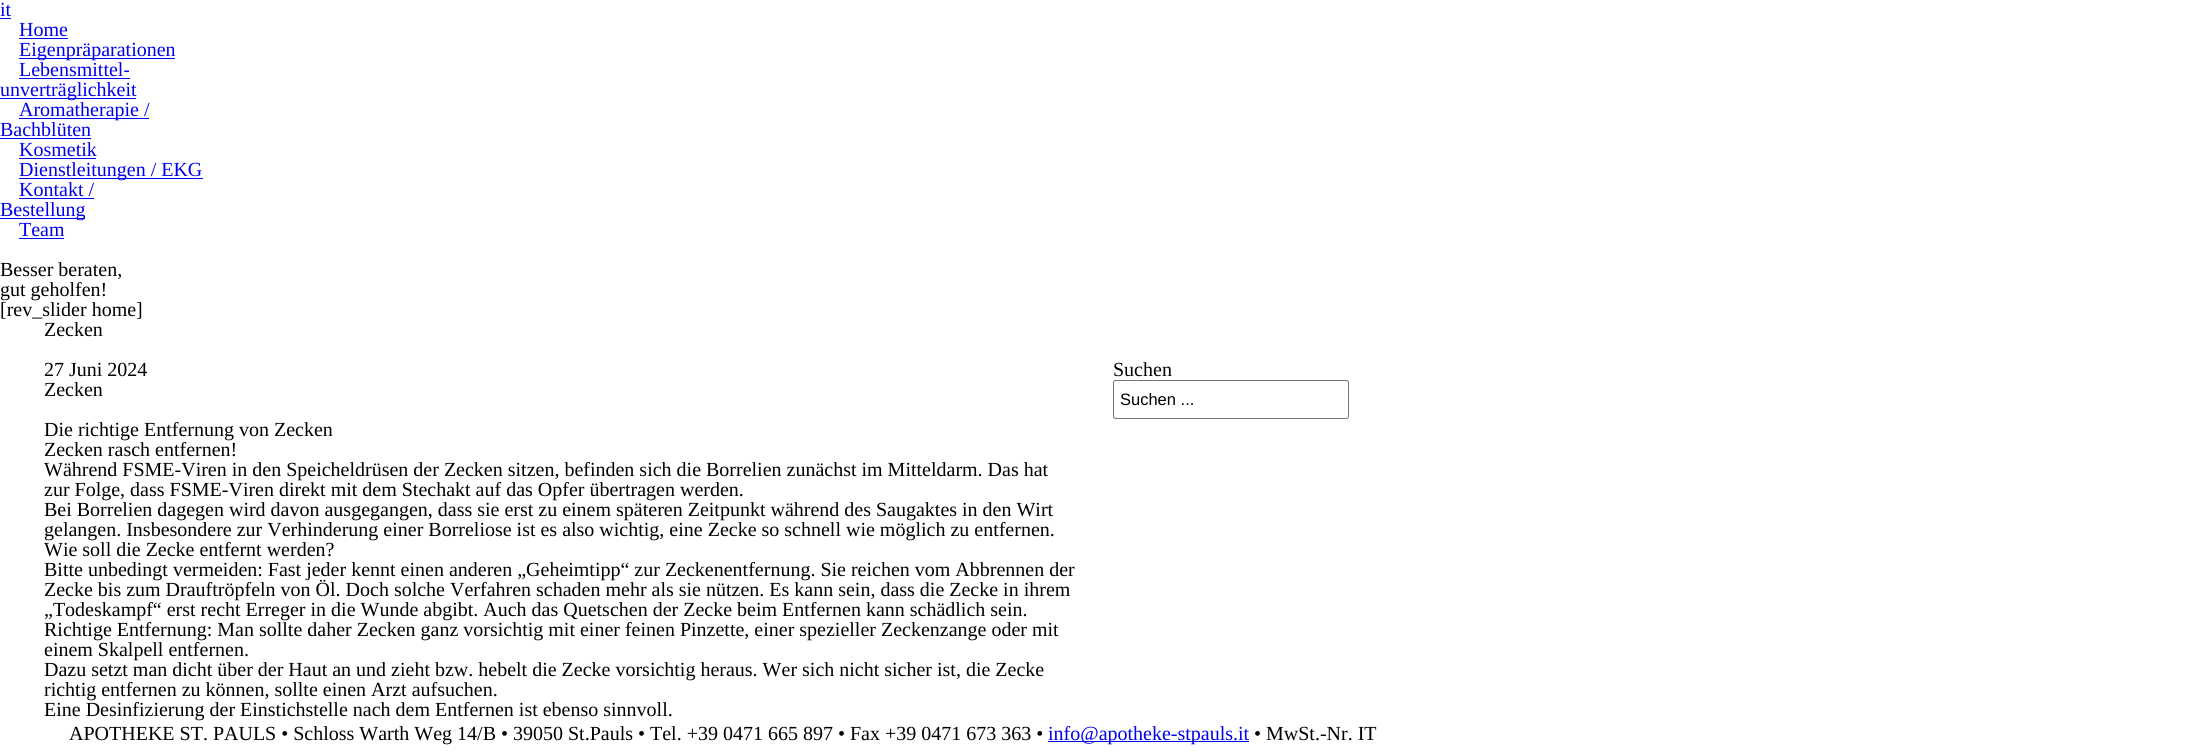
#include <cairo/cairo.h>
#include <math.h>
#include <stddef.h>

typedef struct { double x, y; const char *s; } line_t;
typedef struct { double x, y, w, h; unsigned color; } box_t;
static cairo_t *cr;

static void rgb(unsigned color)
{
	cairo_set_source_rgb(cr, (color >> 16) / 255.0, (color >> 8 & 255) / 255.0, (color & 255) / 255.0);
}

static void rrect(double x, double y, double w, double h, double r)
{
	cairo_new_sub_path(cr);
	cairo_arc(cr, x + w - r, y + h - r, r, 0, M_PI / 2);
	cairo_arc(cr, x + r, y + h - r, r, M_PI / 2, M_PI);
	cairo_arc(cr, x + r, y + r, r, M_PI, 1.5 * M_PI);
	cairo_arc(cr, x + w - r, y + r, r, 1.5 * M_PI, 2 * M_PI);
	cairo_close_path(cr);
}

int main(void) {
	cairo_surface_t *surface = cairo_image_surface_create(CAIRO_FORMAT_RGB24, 2199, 752);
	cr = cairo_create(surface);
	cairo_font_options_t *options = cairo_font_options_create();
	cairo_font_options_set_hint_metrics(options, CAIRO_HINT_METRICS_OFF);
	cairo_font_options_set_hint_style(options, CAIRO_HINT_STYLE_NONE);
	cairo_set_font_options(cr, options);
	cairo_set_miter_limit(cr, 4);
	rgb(0xffffff);
	cairo_paint(cr);
	{
		static const box_t items[] = {
			{0, 18, 11, 1, 0x0000ee},
			{19, 38, 49, 1, 0x0000ee},
			{19, 58, 156, 1, 0x0000ee},
			{19, 78, 111, 1, 0x0000ee},
			{0, 98, 136, 1, 0x0000ee},
			{19, 118, 130, 1, 0x0000ee},
			{0, 138, 91, 1, 0x0000ee},
			{19, 158, 77, 1, 0x0000ee},
			{19, 178, 184, 1, 0x0000ee},
			{19, 198, 75, 1, 0x0000ee},
			{0, 218, 85, 1, 0x0000ee},
			{19, 238, 45, 1, 0x0000ee},
		};
		for (size_t i = 0; i < sizeof items / sizeof *items; i++) {
			rgb(items[i].color);
			cairo_rectangle(cr, items[i].x, items[i].y, items[i].w, items[i].h);
			cairo_fill(cr);
		}
	}
	rrect(1113.5, 380.5, 235, 38, 2);
	rgb(0x767676);
	cairo_set_line_width(cr, 1);
	cairo_stroke(cr);
	rgb(0x0000ee);
	cairo_rectangle(cr, 1048, 741, 201, 1);
	cairo_fill(cr);
	cairo_select_font_face(cr, "Liberation Serif", CAIRO_FONT_SLANT_NORMAL, CAIRO_FONT_WEIGHT_NORMAL);
	cairo_set_font_size(cr, 20);
	{
		static const line_t items[] = {
			{0, 16, "it"},
			{19, 36, "Home"},
			{19, 56, "Eigenpräparationen"},
			{19, 76, "Lebensmittel-"},
			{0, 96, "unverträglichkeit"},
			{19, 116, "Aromatherapie /"},
			{0, 136, "Bachblüten"},
			{19, 156, "Kosmetik"},
			{19, 176, "Dienstleitungen / EKG"},
			{19, 196, "Kontakt /"},
			{0, 216, "Bestellung"},
			{19, 236, "Team"},
		};
		for (size_t i = 0; i < sizeof items / sizeof *items; i++) {
			cairo_move_to(cr, items[i].x, items[i].y);
			cairo_show_text(cr, items[i].s);
		}
	}
	rgb(0x000000);
	{
		static const line_t items[] = {
			{0, 276, "Besser beraten,"},
			{0, 296, "gut geholfen!"},
			{0, 316, "[rev_slider home]"},
			{44, 336, "Zecken"},
			{44, 376, "27 Juni 2024"},
			{44, 396, "Zecken"},
			{44, 436, "Die richtige Entfernung von Zecken"},
			{44, 456, "Zecken rasch entfernen!"},
			{44, 476, "Während FSME-Viren in den Speicheldrüsen der Zecken sitzen, befinden sich die Borrelien zunächst im Mitteldarm. Das hat"},
			{44, 496, "zur Folge, dass FSME-Viren direkt mit dem Stechakt auf das Opfer übertragen werden."},
			{44, 516, "Bei Borrelien dagegen wird davon ausgegangen, dass sie erst zu einem späteren Zeitpunkt während des Saugaktes in den Wirt"},
			{44, 536, "gelangen. Insbesondere zur Verhinderung einer Borreliose ist es also wichtig, eine Zecke so schnell wie möglich zu entfernen."},
			{44, 556, "Wie soll die Zecke entfernt werden?"},
			{44, 576, "Bitte unbedingt vermeiden: Fast jeder kennt einen anderen „Geheimtipp“ zur Zeckenentfernung. Sie reichen vom Abbrennen der"},
			{44, 596, "Zecke bis zum Drauftröpfeln von Öl. Doch solche Verfahren schaden mehr als sie nützen. Es kann sein, dass die Zecke in ihrem"},
			{44, 616, "„Todeskampf“ erst recht Erreger in die Wunde abgibt. Auch das Quetschen der Zecke beim Entfernen kann schädlich sein."},
			{44, 636, "Richtige Entfernung: Man sollte daher Zecken ganz vorsichtig mit einer feinen Pinzette, einer spezieller Zeckenzange oder mit"},
			{44, 656, "einem Skalpell entfernen."},
			{44, 676, "Dazu setzt man dicht über der Haut an und zieht bzw. hebelt die Zecke vorsichtig heraus. Wer sich nicht sicher ist, die Zecke"},
			{44, 696, "richtig entfernen zu können, sollte einen Arzt aufsuchen."},
			{44, 716, "Eine Desinfizierung der Einstichstelle nach dem Entfernen ist ebenso sinnvoll."},
			{1113, 376, "Suchen"},
		};
		for (size_t i = 0; i < sizeof items / sizeof *items; i++) {
			cairo_move_to(cr, items[i].x, items[i].y);
			cairo_show_text(cr, items[i].s);
		}
	}
	cairo_select_font_face(cr, "Liberation Sans", CAIRO_FONT_SLANT_NORMAL, CAIRO_FONT_WEIGHT_NORMAL);
	cairo_set_font_size(cr, 16.5);
	cairo_move_to(cr, 1120, 405);
	cairo_show_text(cr, "Suchen ...");
	cairo_select_font_face(cr, "Liberation Serif", CAIRO_FONT_SLANT_NORMAL, CAIRO_FONT_WEIGHT_NORMAL);
	cairo_set_font_size(cr, 20);
	cairo_move_to(cr, 69, 740);
	cairo_show_text(cr, "APOTHEKE ST. PAULS • Schloss Warth Weg 14/B • 39050 St.Pauls • Tel. +39 0471 665 897 • Fax +39 0471 673 363 •");
	rgb(0x0000ee);
	cairo_move_to(cr, 1048, 740);
	cairo_show_text(cr, "info@apotheke-stpauls.it");
	rgb(0x000000);
	cairo_move_to(cr, 1254, 740);
	cairo_show_text(cr, "• MwSt.-Nr. IT");
	cairo_surface_write_to_png(surface, "page.png");
	cairo_font_options_destroy(options);
	cairo_destroy(cr);
	cairo_surface_destroy(surface);
	return 0;
}
